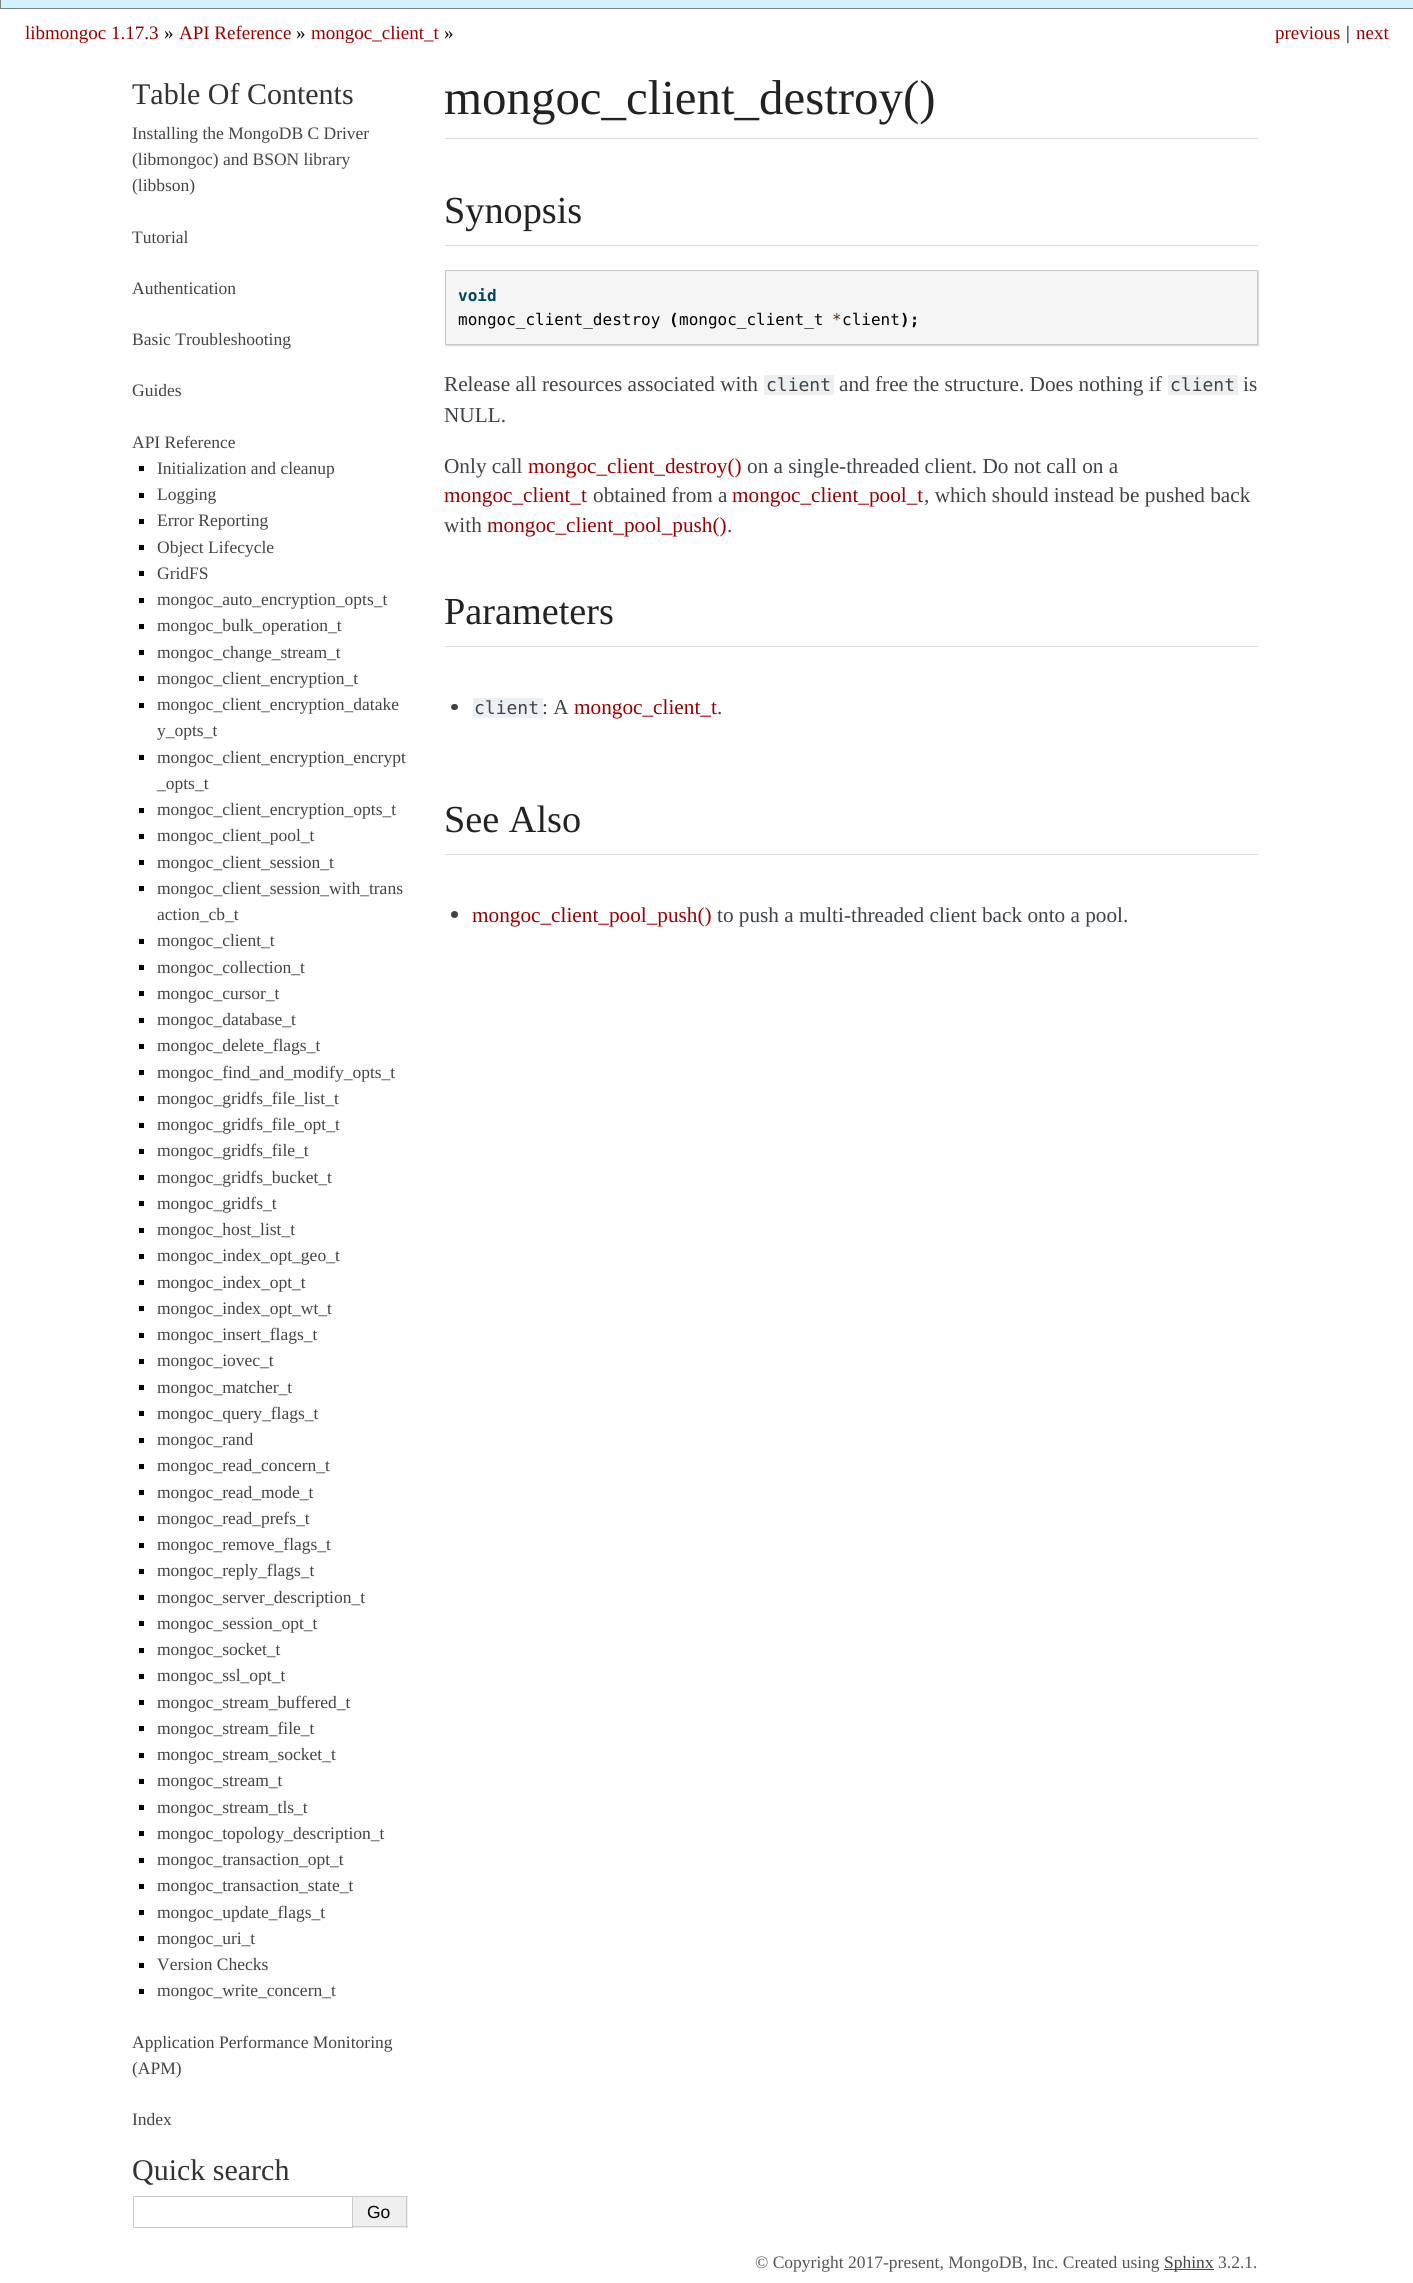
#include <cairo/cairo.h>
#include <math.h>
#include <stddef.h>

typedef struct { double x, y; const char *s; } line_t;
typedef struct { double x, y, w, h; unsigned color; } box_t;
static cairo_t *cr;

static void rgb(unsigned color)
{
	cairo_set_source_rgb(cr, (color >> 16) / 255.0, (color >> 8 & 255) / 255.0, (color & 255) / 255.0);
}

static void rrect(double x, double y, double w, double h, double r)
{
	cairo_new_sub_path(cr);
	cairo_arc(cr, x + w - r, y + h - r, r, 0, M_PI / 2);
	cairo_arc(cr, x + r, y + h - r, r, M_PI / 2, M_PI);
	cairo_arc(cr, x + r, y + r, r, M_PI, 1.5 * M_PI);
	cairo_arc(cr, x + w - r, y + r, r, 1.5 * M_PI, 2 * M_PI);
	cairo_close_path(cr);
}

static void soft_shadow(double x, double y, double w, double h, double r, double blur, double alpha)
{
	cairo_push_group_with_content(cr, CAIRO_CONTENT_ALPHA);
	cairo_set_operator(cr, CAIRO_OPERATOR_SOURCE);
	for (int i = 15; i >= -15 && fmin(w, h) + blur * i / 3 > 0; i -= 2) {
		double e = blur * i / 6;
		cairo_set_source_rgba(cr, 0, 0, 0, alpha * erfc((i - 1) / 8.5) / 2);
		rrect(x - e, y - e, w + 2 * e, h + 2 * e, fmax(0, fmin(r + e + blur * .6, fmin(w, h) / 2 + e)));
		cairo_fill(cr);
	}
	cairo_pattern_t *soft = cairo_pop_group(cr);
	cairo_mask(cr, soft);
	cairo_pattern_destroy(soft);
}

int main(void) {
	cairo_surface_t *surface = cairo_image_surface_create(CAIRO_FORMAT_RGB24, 1413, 2283);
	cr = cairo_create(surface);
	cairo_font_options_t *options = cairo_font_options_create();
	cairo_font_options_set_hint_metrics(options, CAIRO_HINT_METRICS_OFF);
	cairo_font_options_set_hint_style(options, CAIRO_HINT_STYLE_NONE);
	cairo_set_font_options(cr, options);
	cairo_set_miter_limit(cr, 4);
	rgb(0xffffff);
	cairo_paint(cr);
	rgb(0xd4f1ff);
	cairo_rectangle(cr, 0.5, -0.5, 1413, 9);
	cairo_fill_preserve(cr);
	rgb(0x808080);
	cairo_set_line_width(cr, 1);
	cairo_stroke(cr);
	{
		static const box_t items[] = {
			{139, 466, 5, 5, 0x000000},
			{139, 493, 5, 5, 0x000000},
			{139, 519, 5, 5, 0x000000},
			{139, 545, 5, 5, 0x000000},
			{139, 571, 5, 5, 0x000000},
			{139, 598, 5, 5, 0x000000},
			{139, 624, 5, 5, 0x000000},
			{139, 650, 5, 5, 0x000000},
			{139, 676, 5, 5, 0x000000},
			{139, 703, 5, 5, 0x000000},
			{139, 755, 5, 5, 0x000000},
			{139, 808, 5, 5, 0x000000},
			{139, 834, 5, 5, 0x000000},
			{139, 860, 5, 5, 0x000000},
			{139, 886, 5, 5, 0x000000},
			{139, 939, 5, 5, 0x000000},
			{139, 965, 5, 5, 0x000000},
			{139, 991, 5, 5, 0x000000},
			{139, 1018, 5, 5, 0x000000},
			{139, 1044, 5, 5, 0x000000},
			{139, 1070, 5, 5, 0x000000},
			{139, 1096, 5, 5, 0x000000},
			{139, 1123, 5, 5, 0x000000},
			{139, 1149, 5, 5, 0x000000},
			{139, 1175, 5, 5, 0x000000},
			{139, 1201, 5, 5, 0x000000},
			{139, 1228, 5, 5, 0x000000},
			{139, 1254, 5, 5, 0x000000},
			{139, 1280, 5, 5, 0x000000},
			{139, 1306, 5, 5, 0x000000},
			{139, 1333, 5, 5, 0x000000},
			{139, 1359, 5, 5, 0x000000},
			{139, 1385, 5, 5, 0x000000},
			{139, 1411, 5, 5, 0x000000},
			{139, 1438, 5, 5, 0x000000},
			{139, 1464, 5, 5, 0x000000},
			{139, 1490, 5, 5, 0x000000},
			{139, 1516, 5, 5, 0x000000},
			{139, 1543, 5, 5, 0x000000},
			{139, 1569, 5, 5, 0x000000},
			{139, 1595, 5, 5, 0x000000},
			{139, 1621, 5, 5, 0x000000},
			{139, 1648, 5, 5, 0x000000},
			{139, 1674, 5, 5, 0x000000},
			{139, 1700, 5, 5, 0x000000},
			{139, 1726, 5, 5, 0x000000},
			{139, 1753, 5, 5, 0x000000},
			{139, 1779, 5, 5, 0x000000},
			{139, 1805, 5, 5, 0x000000},
			{139, 1831, 5, 5, 0x000000},
			{139, 1858, 5, 5, 0x000000},
			{139, 1884, 5, 5, 0x000000},
			{139, 1910, 5, 5, 0x000000},
			{139, 1936, 5, 5, 0x000000},
			{139, 1963, 5, 5, 0x000000},
			{139, 1989, 5, 5, 0x000000},
		};
		for (size_t i = 0; i < sizeof items / sizeof *items; i++) {
			rgb(items[i].color);
			cairo_rectangle(cr, items[i].x, items[i].y, items[i].w, items[i].h);
			cairo_fill(cr);
		}
	}
	cairo_rectangle(cr, 133.5, 2196.5, 219, 31);
	rgb(0xcccccc);
	cairo_stroke(cr);
	{
		static const box_t items[] = {
			{353, 2197, 55, 31, 0xefefef},
			{353, 2196, 55, 1, 0xcccccc},
			{406, 2196, 1, 32, 0xcccccc},
			{353, 2226, 55, 1, 0xcccccc},
			{445, 138, 813, 1, 0xdddddd},
			{445, 245, 813, 1, 0xdddddd},
		};
		for (size_t i = 0; i < sizeof items / sizeof *items; i++) {
			rgb(items[i].color);
			cairo_rectangle(cr, items[i].x, items[i].y, items[i].w, items[i].h);
			cairo_fill(cr);
		}
	}
	rgb(0xd8d8d8);
	soft_shadow(446, 271, 813, 75, 0, 0.5, 1);
	rgb(0xf5f5f5);
	cairo_rectangle(cr, 445.5, 270.5, 812, 74);
	cairo_fill_preserve(cr);
	rgb(0xc6c9cb);
	cairo_stroke(cr);
	{
		static const box_t items[] = {
			{764, 375, 70, 20, 0xecf0f3},
			{1168, 375, 70, 20, 0xecf0f3},
			{445, 646, 813, 1, 0xdddddd},
		};
		for (size_t i = 0; i < sizeof items / sizeof *items; i++) {
			rgb(items[i].color);
			cairo_rectangle(cr, items[i].x, items[i].y, items[i].w, items[i].h);
			cairo_fill(cr);
		}
	}
	rgb(0x3e4349);
	rrect(451, 704, 7, 6, 3);
	cairo_fill(cr);
	rgb(0xecf0f3);
	cairo_rectangle(cr, 473, 698, 70, 20);
	cairo_fill(cr);
	rgb(0xdddddd);
	cairo_rectangle(cr, 445, 854, 813, 1);
	cairo_fill(cr);
	rgb(0x3e4349);
	cairo_arc(cr, 454.5, 914.5, 3.5, 0, 2 * M_PI);
	cairo_fill(cr);
	rgb(0x444444);
	cairo_rectangle(cr, 1164, 2269, 50, 1);
	cairo_fill(cr);
	cairo_select_font_face(cr, "Liberation Serif", CAIRO_FONT_SLANT_NORMAL, CAIRO_FONT_WEIGHT_NORMAL);
	cairo_set_font_size(cr, 19);
	rgb(0x990000);
	cairo_move_to(cr, 25, 39);
	cairo_show_text(cr, "libmongoc 1.17.3");
	rgb(0x000000);
	cairo_move_to(cr, 164, 39);
	cairo_show_text(cr, "»");
	rgb(0x990000);
	cairo_move_to(cr, 179, 39);
	cairo_show_text(cr, "API Reference");
	rgb(0x000000);
	cairo_move_to(cr, 296, 39);
	cairo_show_text(cr, "»");
	rgb(0x990000);
	cairo_move_to(cr, 311, 39);
	cairo_show_text(cr, "mongoc_client_t");
	rgb(0x000000);
	cairo_move_to(cr, 444, 39);
	cairo_show_text(cr, "»");
	rgb(0x990000);
	cairo_move_to(cr, 1275, 39);
	cairo_show_text(cr, "previous");
	rgb(0x000000);
	cairo_move_to(cr, 1346, 39);
	cairo_show_text(cr, "|");
	rgb(0x990000);
	cairo_move_to(cr, 1356, 39);
	cairo_show_text(cr, "next");
	cairo_set_font_size(cr, 30);
	rgb(0x333333);
	cairo_move_to(cr, 132, 104);
	cairo_show_text(cr, "Table Of Contents");
	cairo_set_font_size(cr, 17.5);
	rgb(0x444444);
	{
		static const line_t items[] = {
			{132, 139, "Installing the MongoDB C Driver"},
			{132, 165, "(libmongoc) and BSON library"},
			{132, 191, "(libbson)"},
			{132, 243, "Tutorial"},
			{132, 294, "Authentication"},
			{132, 345, "Basic Troubleshooting"},
			{132, 396, "Guides"},
			{132, 448, "API Reference"},
			{157, 474, "Initialization and cleanup"},
			{157, 500, "Logging"},
			{157, 526, "Error Reporting"},
			{157, 553, "Object Lifecycle"},
			{157, 579, "GridFS"},
			{157, 605, "mongoc_auto_encryption_opts_t"},
			{157, 631, "mongoc_bulk_operation_t"},
			{157, 658, "mongoc_change_stream_t"},
			{157, 684, "mongoc_client_encryption_t"},
			{157, 710, "mongoc_client_encryption_datake"},
			{157, 736, "y_opts_t"},
			{157, 763, "mongoc_client_encryption_encrypt"},
			{157, 789, "_opts_t"},
			{157, 815, "mongoc_client_encryption_opts_t"},
			{157, 841, "mongoc_client_pool_t"},
			{157, 868, "mongoc_client_session_t"},
			{157, 894, "mongoc_client_session_with_trans"},
			{157, 920, "action_cb_t"},
			{157, 946, "mongoc_client_t"},
			{157, 973, "mongoc_collection_t"},
			{157, 999, "mongoc_cursor_t"},
			{157, 1025, "mongoc_database_t"},
			{157, 1051, "mongoc_delete_flags_t"},
			{157, 1078, "mongoc_find_and_modify_opts_t"},
			{157, 1104, "mongoc_gridfs_file_list_t"},
			{157, 1130, "mongoc_gridfs_file_opt_t"},
			{157, 1156, "mongoc_gridfs_file_t"},
			{157, 1183, "mongoc_gridfs_bucket_t"},
			{157, 1209, "mongoc_gridfs_t"},
			{157, 1235, "mongoc_host_list_t"},
			{157, 1261, "mongoc_index_opt_geo_t"},
			{157, 1288, "mongoc_index_opt_t"},
			{157, 1314, "mongoc_index_opt_wt_t"},
			{157, 1340, "mongoc_insert_flags_t"},
			{157, 1366, "mongoc_iovec_t"},
			{157, 1393, "mongoc_matcher_t"},
			{157, 1419, "mongoc_query_flags_t"},
			{157, 1445, "mongoc_rand"},
			{157, 1471, "mongoc_read_concern_t"},
			{157, 1498, "mongoc_read_mode_t"},
			{157, 1524, "mongoc_read_prefs_t"},
			{157, 1550, "mongoc_remove_flags_t"},
			{157, 1576, "mongoc_reply_flags_t"},
			{157, 1603, "mongoc_server_description_t"},
			{157, 1629, "mongoc_session_opt_t"},
			{157, 1655, "mongoc_socket_t"},
			{157, 1681, "mongoc_ssl_opt_t"},
			{157, 1708, "mongoc_stream_buffered_t"},
			{157, 1734, "mongoc_stream_file_t"},
			{157, 1760, "mongoc_stream_socket_t"},
			{157, 1786, "mongoc_stream_t"},
			{157, 1813, "mongoc_stream_tls_t"},
			{157, 1839, "mongoc_topology_description_t"},
			{157, 1865, "mongoc_transaction_opt_t"},
			{157, 1891, "mongoc_transaction_state_t"},
			{157, 1918, "mongoc_update_flags_t"},
			{157, 1944, "mongoc_uri_t"},
			{157, 1970, "Version Checks"},
			{157, 1996, "mongoc_write_concern_t"},
			{132, 2048, "Application Performance Monitoring"},
			{132, 2074, "(APM)"},
			{132, 2125, "Index"},
		};
		for (size_t i = 0; i < sizeof items / sizeof *items; i++) {
			cairo_move_to(cr, items[i].x, items[i].y);
			cairo_show_text(cr, items[i].s);
		}
	}
	cairo_set_font_size(cr, 30);
	rgb(0x333333);
	cairo_move_to(cr, 132, 2180);
	cairo_show_text(cr, "Quick search");
	cairo_select_font_face(cr, "Liberation Sans", CAIRO_FONT_SLANT_NORMAL, CAIRO_FONT_WEIGHT_NORMAL);
	cairo_set_font_size(cr, 17.5);
	rgb(0x000000);
	cairo_move_to(cr, 367, 2218);
	cairo_show_text(cr, "Go");
	cairo_select_font_face(cr, "Liberation Serif", CAIRO_FONT_SLANT_NORMAL, CAIRO_FONT_WEIGHT_NORMAL);
	cairo_set_font_size(cr, 48.9);
	rgb(0x212224);
	cairo_move_to(cr, 444, 114);
	cairo_show_text(cr, "mongoc_client_destroy()");
	cairo_set_font_size(cr, 38.25);
	cairo_move_to(cr, 444, 223);
	cairo_show_text(cr, "Synopsis");
	cairo_select_font_face(cr, "DejaVu Sans Mono", CAIRO_FONT_SLANT_NORMAL, CAIRO_FONT_WEIGHT_BOLD);
	cairo_set_font_size(cr, 16);
	rgb(0x004461);
	cairo_move_to(cr, 458, 301);
	cairo_show_text(cr, "void");
	cairo_select_font_face(cr, "DejaVu Sans Mono", CAIRO_FONT_SLANT_NORMAL, CAIRO_FONT_WEIGHT_NORMAL);
	rgb(0x000000);
	cairo_move_to(cr, 458, 325);
	cairo_show_text(cr, "mongoc_client_destroy");
	cairo_select_font_face(cr, "DejaVu Sans Mono", CAIRO_FONT_SLANT_NORMAL, CAIRO_FONT_WEIGHT_BOLD);
	cairo_move_to(cr, 669, 325);
	cairo_show_text(cr, "(");
	cairo_select_font_face(cr, "DejaVu Sans Mono", CAIRO_FONT_SLANT_NORMAL, CAIRO_FONT_WEIGHT_NORMAL);
	cairo_move_to(cr, 679, 325);
	cairo_show_text(cr, "mongoc_client_t");
	rgb(0x582800);
	cairo_move_to(cr, 832, 325);
	cairo_show_text(cr, "*");
	rgb(0x000000);
	cairo_move_to(cr, 842, 325);
	cairo_show_text(cr, "client");
	cairo_select_font_face(cr, "DejaVu Sans Mono", CAIRO_FONT_SLANT_NORMAL, CAIRO_FONT_WEIGHT_BOLD);
	cairo_move_to(cr, 900, 325);
	cairo_show_text(cr, ");");
	cairo_select_font_face(cr, "Liberation Serif", CAIRO_FONT_SLANT_NORMAL, CAIRO_FONT_WEIGHT_NORMAL);
	cairo_set_font_size(cr, 21.25);
	rgb(0x3e4349);
	cairo_move_to(cr, 444, 391);
	cairo_show_text(cr, "Release all resources associated with");
	cairo_select_font_face(cr, "DejaVu Sans Mono", CAIRO_FONT_SLANT_NORMAL, CAIRO_FONT_WEIGHT_NORMAL);
	cairo_set_font_size(cr, 18);
	cairo_move_to(cr, 766, 391);
	cairo_show_text(cr, "client");
	cairo_select_font_face(cr, "Liberation Serif", CAIRO_FONT_SLANT_NORMAL, CAIRO_FONT_WEIGHT_NORMAL);
	cairo_set_font_size(cr, 21.25);
	cairo_move_to(cr, 839, 391);
	cairo_show_text(cr, "and free the structure. Does nothing if");
	cairo_select_font_face(cr, "DejaVu Sans Mono", CAIRO_FONT_SLANT_NORMAL, CAIRO_FONT_WEIGHT_NORMAL);
	cairo_set_font_size(cr, 18);
	cairo_move_to(cr, 1170, 391);
	cairo_show_text(cr, "client");
	cairo_select_font_face(cr, "Liberation Serif", CAIRO_FONT_SLANT_NORMAL, CAIRO_FONT_WEIGHT_NORMAL);
	cairo_set_font_size(cr, 21.25);
	{
		static const line_t items[] = {
			{1243, 391, "is"},
			{444, 422, "NULL."},
			{444, 473, "Only call"},
		};
		for (size_t i = 0; i < sizeof items / sizeof *items; i++) {
			cairo_move_to(cr, items[i].x, items[i].y);
			cairo_show_text(cr, items[i].s);
		}
	}
	rgb(0x990000);
	cairo_move_to(cr, 528, 473);
	cairo_show_text(cr, "mongoc_client_destroy()");
	rgb(0x3e4349);
	cairo_move_to(cr, 747, 473);
	cairo_show_text(cr, "on a single-threaded client. Do not call on a");
	rgb(0x990000);
	cairo_move_to(cr, 444, 502);
	cairo_show_text(cr, "mongoc_client_t");
	rgb(0x3e4349);
	cairo_move_to(cr, 593, 502);
	cairo_show_text(cr, "obtained from a");
	rgb(0x990000);
	cairo_move_to(cr, 732, 502);
	cairo_show_text(cr, "mongoc_client_pool_t");
	rgb(0x3e4349);
	cairo_move_to(cr, 924, 502);
	cairo_show_text(cr, ", which should instead be pushed back");
	cairo_move_to(cr, 444, 532);
	cairo_show_text(cr, "with");
	rgb(0x990000);
	cairo_move_to(cr, 487, 532);
	cairo_show_text(cr, "mongoc_client_pool_push()");
	rgb(0x3e4349);
	cairo_move_to(cr, 727, 532);
	cairo_show_text(cr, ".");
	cairo_set_font_size(cr, 38.25);
	rgb(0x212224);
	cairo_move_to(cr, 444, 624);
	cairo_show_text(cr, "Parameters");
	cairo_select_font_face(cr, "DejaVu Sans Mono", CAIRO_FONT_SLANT_NORMAL, CAIRO_FONT_WEIGHT_NORMAL);
	cairo_set_font_size(cr, 18);
	rgb(0x3e4349);
	cairo_move_to(cr, 474, 714);
	cairo_show_text(cr, "client");
	cairo_select_font_face(cr, "Liberation Serif", CAIRO_FONT_SLANT_NORMAL, CAIRO_FONT_WEIGHT_NORMAL);
	cairo_set_font_size(cr, 21.25);
	cairo_move_to(cr, 542, 714);
	cairo_show_text(cr, ": A");
	rgb(0x990000);
	cairo_move_to(cr, 574, 714);
	cairo_show_text(cr, "mongoc_client_t");
	rgb(0x3e4349);
	cairo_move_to(cr, 717, 714);
	cairo_show_text(cr, ".");
	cairo_set_font_size(cr, 38.25);
	rgb(0x212224);
	cairo_move_to(cr, 444, 832);
	cairo_show_text(cr, "See Also");
	cairo_set_font_size(cr, 21.25);
	rgb(0x990000);
	cairo_move_to(cr, 472, 922);
	cairo_show_text(cr, "mongoc_client_pool_push()");
	rgb(0x3e4349);
	cairo_move_to(cr, 717, 922);
	cairo_show_text(cr, "to push a multi-threaded client back onto a pool.");
	cairo_set_font_size(cr, 17.5);
	rgb(0x555555);
	cairo_move_to(cr, 755, 2268);
	cairo_show_text(cr, "© Copyright 2017-present, MongoDB, Inc. Created using");
	rgb(0x444444);
	cairo_move_to(cr, 1164, 2268);
	cairo_show_text(cr, "Sphinx");
	rgb(0x555555);
	cairo_move_to(cr, 1218, 2268);
	cairo_show_text(cr, "3.2.1.");
	cairo_surface_write_to_png(surface, "page.png");
	cairo_font_options_destroy(options);
	cairo_destroy(cr);
	cairo_surface_destroy(surface);
	return 0;
}
